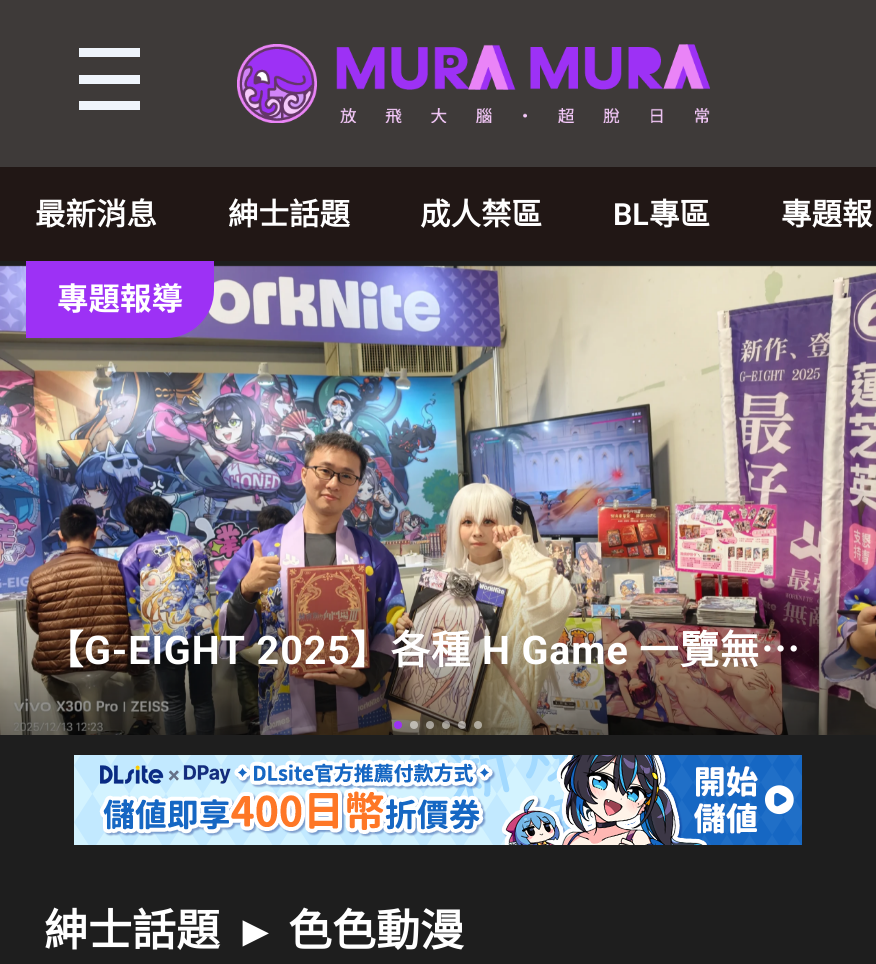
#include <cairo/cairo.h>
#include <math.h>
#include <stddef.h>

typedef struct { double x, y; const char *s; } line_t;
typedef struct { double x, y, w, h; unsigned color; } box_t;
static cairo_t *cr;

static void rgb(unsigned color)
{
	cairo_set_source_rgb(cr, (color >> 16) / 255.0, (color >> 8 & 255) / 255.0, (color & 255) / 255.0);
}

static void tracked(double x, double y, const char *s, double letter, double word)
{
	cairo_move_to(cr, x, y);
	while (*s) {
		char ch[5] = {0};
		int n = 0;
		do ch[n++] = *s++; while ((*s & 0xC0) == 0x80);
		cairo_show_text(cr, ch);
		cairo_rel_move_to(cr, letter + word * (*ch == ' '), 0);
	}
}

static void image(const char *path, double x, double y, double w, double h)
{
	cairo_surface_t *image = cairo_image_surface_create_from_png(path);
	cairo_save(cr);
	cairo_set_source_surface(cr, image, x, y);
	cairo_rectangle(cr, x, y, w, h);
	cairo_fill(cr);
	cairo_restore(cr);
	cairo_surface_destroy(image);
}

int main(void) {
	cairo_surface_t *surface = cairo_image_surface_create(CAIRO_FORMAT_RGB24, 876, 964);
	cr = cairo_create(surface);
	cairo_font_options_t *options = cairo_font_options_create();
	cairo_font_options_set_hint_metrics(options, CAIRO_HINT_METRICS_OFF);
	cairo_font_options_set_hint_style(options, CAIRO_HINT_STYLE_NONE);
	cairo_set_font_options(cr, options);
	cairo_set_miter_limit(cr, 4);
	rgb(0x1e1e1e);
	cairo_paint(cr);
	{
		static const box_t items[] = {
			{0, 0, 876, 167, 0x3e3a39},
			{79, 48, 61, 1, 0xeff4fb},
			{132, 48, 8, 9, 0xeff4fb},
			{79, 49, 61, 8, 0xeff4fb},
			{79, 75, 61, 1, 0xeff4fb},
			{132, 75, 8, 9, 0xeff4fb},
			{79, 76, 61, 8, 0xeff4fb},
			{79, 101, 61, 1, 0xeff4fb},
			{132, 101, 8, 9, 0xeff4fb},
			{79, 102, 61, 8, 0xeff4fb},
		};
		for (size_t i = 0; i < sizeof items / sizeof *items; i++) {
			rgb(items[i].color);
			cairo_rectangle(cr, items[i].x, items[i].y, items[i].w, items[i].h);
			cairo_fill(cr);
		}
	}
	image("img/1.png", 237, 44, 473, 79);
	rgb(0x211715);
	cairo_rectangle(cr, 0, 167, 876, 94);
	cairo_fill(cr);
	image("img/2.png", 0, 265, 876, 470);
	rgb(0x9d31f5);
	cairo_new_path(cr);
	cairo_move_to(cr, 26, 261);
	cairo_line_to(cr, 214, 261);
	cairo_line_to(cr, 214, 290);
	cairo_curve_to(cr, 214, 316.5, 192.5, 338, 166, 338);
	cairo_line_to(cr, 26, 338);
	cairo_close_path(cr);
	cairo_fill(cr);
	cairo_arc(cr, 398, 725, 4, 0, 2 * M_PI);
	cairo_fill(cr);
	cairo_set_source_rgba(cr, 1, 1, 1, 0.5);
	cairo_arc(cr, 414, 725, 4, 0, 2 * M_PI);
	cairo_fill(cr);
	cairo_arc(cr, 430, 725, 4, 0, 2 * M_PI);
	cairo_fill(cr);
	cairo_arc(cr, 446, 725, 4, 0, 2 * M_PI);
	cairo_fill(cr);
	cairo_arc(cr, 462, 725, 4, 0, 2 * M_PI);
	cairo_fill(cr);
	cairo_arc(cr, 478, 725, 4, 0, 2 * M_PI);
	cairo_fill(cr);
	image("img/3.png", 74, 755, 728, 90);
	cairo_select_font_face(cr, "Noto Sans CJK TC", CAIRO_FONT_SLANT_NORMAL, CAIRO_FONT_WEIGHT_BOLD);
	cairo_set_font_size(cr, 30.5);
	rgb(0xffffff);
	{
		static const line_t items[] = {
			{35, 225, "最新消息"},
			{228, 225, "紳士話題"},
			{420, 225, "成人禁區"},
		};
		for (size_t i = 0; i < sizeof items / sizeof *items; i++) {
			cairo_move_to(cr, items[i].x, items[i].y);
			cairo_show_text(cr, items[i].s);
		}
	}
	cairo_select_font_face(cr, "Roboto SemiBold", CAIRO_FONT_SLANT_NORMAL, CAIRO_FONT_WEIGHT_NORMAL);
	cairo_move_to(cr, 613, 225);
	cairo_show_text(cr, "BL");
	cairo_select_font_face(cr, "Noto Sans CJK TC", CAIRO_FONT_SLANT_NORMAL, CAIRO_FONT_WEIGHT_BOLD);
	cairo_move_to(cr, 649, 225);
	cairo_show_text(cr, "專區");
	cairo_move_to(cr, 781, 225);
	cairo_show_text(cr, "專題報");
	cairo_select_font_face(cr, "Noto Sans TC", CAIRO_FONT_SLANT_NORMAL, CAIRO_FONT_WEIGHT_BOLD);
	cairo_set_font_size(cr, 31.5);
	cairo_move_to(cr, 57, 310);
	cairo_show_text(cr, "專題報導");
	cairo_select_font_face(cr, "Noto Sans CJK TC", CAIRO_FONT_SLANT_NORMAL, CAIRO_FONT_WEIGHT_BOLD);
	cairo_set_font_size(cr, 39.5);
	tracked(44, 664, "【", 0.9, 0);
	cairo_select_font_face(cr, "Roboto", CAIRO_FONT_SLANT_NORMAL, CAIRO_FONT_WEIGHT_BOLD);
	tracked(84, 664, "G-EIGHT 2025", 0.9, 0);
	cairo_select_font_face(cr, "Noto Sans CJK TC", CAIRO_FONT_SLANT_NORMAL, CAIRO_FONT_WEIGHT_BOLD);
	tracked(350, 664, "】各種", 0.9, 0);
	cairo_select_font_face(cr, "Roboto", CAIRO_FONT_SLANT_NORMAL, CAIRO_FONT_WEIGHT_BOLD);
	tracked(482, 664, "H Game", 0.9, 0);
	cairo_select_font_face(cr, "Noto Sans CJK TC", CAIRO_FONT_SLANT_NORMAL, CAIRO_FONT_WEIGHT_BOLD);
	tracked(639, 664, "一覽無…", 0.9, 0);
	cairo_set_font_size(cr, 44);
	cairo_move_to(cr, 44, 946);
	cairo_show_text(cr, "紳士話題");
	cairo_select_font_face(cr, "Liberation Sans", CAIRO_FONT_SLANT_NORMAL, CAIRO_FONT_WEIGHT_BOLD);
	cairo_move_to(cr, 234, 946);
	cairo_show_text(cr, "►");
	cairo_select_font_face(cr, "Noto Sans CJK TC", CAIRO_FONT_SLANT_NORMAL, CAIRO_FONT_WEIGHT_BOLD);
	cairo_move_to(cr, 288, 946);
	cairo_show_text(cr, "色色動漫");
	cairo_surface_write_to_png(surface, "page.png");
	cairo_font_options_destroy(options);
	cairo_destroy(cr);
	cairo_surface_destroy(surface);
	return 0;
}
